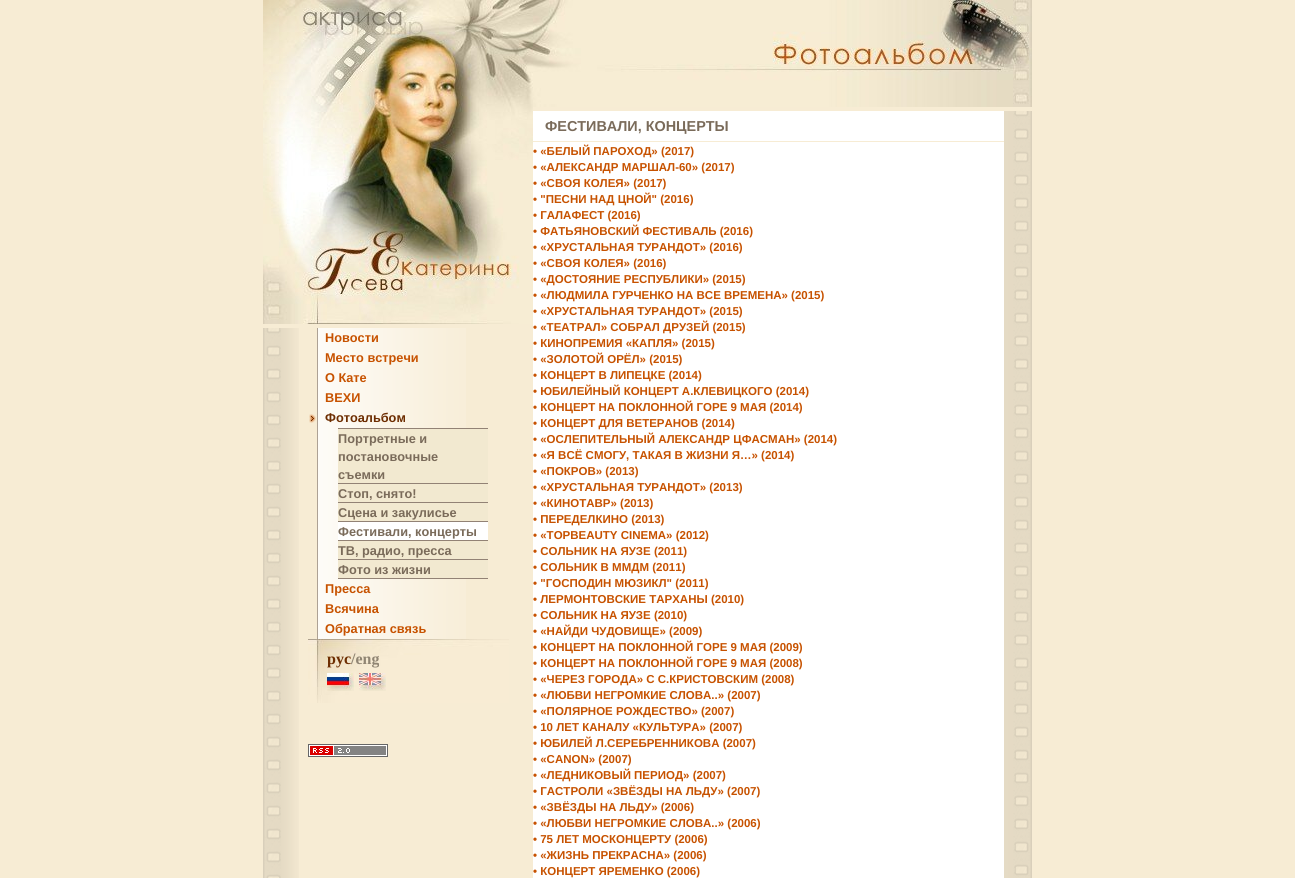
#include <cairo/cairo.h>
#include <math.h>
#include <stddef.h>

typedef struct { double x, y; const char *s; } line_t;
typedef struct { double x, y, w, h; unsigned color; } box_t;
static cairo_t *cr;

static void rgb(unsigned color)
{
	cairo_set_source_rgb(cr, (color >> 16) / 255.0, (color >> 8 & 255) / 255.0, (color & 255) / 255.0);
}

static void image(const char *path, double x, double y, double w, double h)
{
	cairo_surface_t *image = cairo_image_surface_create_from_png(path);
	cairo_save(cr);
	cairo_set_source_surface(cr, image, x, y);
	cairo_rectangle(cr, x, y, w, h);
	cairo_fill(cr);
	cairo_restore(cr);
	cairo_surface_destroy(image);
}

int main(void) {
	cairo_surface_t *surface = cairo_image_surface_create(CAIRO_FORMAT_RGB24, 1295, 878);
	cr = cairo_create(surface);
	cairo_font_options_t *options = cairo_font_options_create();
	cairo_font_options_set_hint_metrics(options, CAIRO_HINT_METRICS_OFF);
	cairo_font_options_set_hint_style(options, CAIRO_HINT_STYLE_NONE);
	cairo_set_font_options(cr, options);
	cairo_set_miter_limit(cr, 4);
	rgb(0xf7ecd4);
	cairo_paint(cr);
	image("img/1.png", 263, 0, 270, 324);
	image("img/2.png", 263, 328, 36, 550);
	rgb(0xada194);
	cairo_rectangle(cr, 317, 328, 1, 311);
	cairo_fill(cr);
	image("img/3.png", 318, 328, 148, 20);
	image("img/3.png", 318, 348, 148, 20);
	image("img/3.png", 318, 368, 148, 20);
	image("img/3.png", 318, 388, 148, 20);
	image("img/4.png", 309, 414, 7, 9);
	image("img/3.png", 318, 408, 148, 20);
	image("img/5.png", 318, 428, 20, 151);
	{
		static const box_t items[] = {
			{338, 428, 150, 1, 0x928275},
			{338, 429, 150, 54, 0xf2e9d0},
			{338, 483, 150, 1, 0x928275},
			{338, 484, 150, 18, 0xf2e9d0},
			{338, 502, 150, 1, 0x928275},
			{338, 503, 150, 18, 0xf2e9d0},
			{338, 521, 150, 1, 0x928275},
			{338, 522, 150, 18, 0xffffff},
			{338, 540, 150, 1, 0x928275},
			{338, 541, 150, 18, 0xf2e9d0},
			{338, 559, 150, 1, 0x928275},
			{338, 560, 150, 18, 0xf2e9d0},
			{338, 578, 150, 1, 0x928275},
		};
		for (size_t i = 0; i < sizeof items / sizeof *items; i++) {
			rgb(items[i].color);
			cairo_rectangle(cr, items[i].x, items[i].y, items[i].w, items[i].h);
			cairo_fill(cr);
		}
	}
	image("img/3.png", 318, 579, 148, 20);
	image("img/3.png", 318, 599, 148, 20);
	image("img/3.png", 318, 619, 148, 20);
	image("img/6.png", 308, 639, 201, 64);
	image("img/7.png", 327, 673, 27, 18);
	image("img/8.png", 359, 673, 27, 18);
	image("img/9.png", 308, 744, 80, 13);
	image("img/10.png", 533, 0, 499, 107);
	rgb(0xffffff);
	cairo_rectangle(cr, 533, 111, 471, 30);
	cairo_fill(cr);
	cairo_rectangle(cr, 533, 142, 471, 736);
	cairo_fill(cr);
	image("img/11.png", 1004, 111, 28, 767);
	cairo_select_font_face(cr, "Liberation Sans", CAIRO_FONT_SLANT_NORMAL, CAIRO_FONT_WEIGHT_BOLD);
	cairo_set_font_size(cr, 12.75);
	rgb(0xc75200);
	{
		static const line_t items[] = {
			{325, 342, "Новости"},
			{325, 362, "Место встречи"},
			{325, 382, "О Кате"},
			{325, 402, "ВЕХИ"},
		};
		for (size_t i = 0; i < sizeof items / sizeof *items; i++) {
			cairo_move_to(cr, items[i].x, items[i].y);
			cairo_show_text(cr, items[i].s);
		}
	}
	rgb(0x6d2d01);
	cairo_move_to(cr, 325, 422);
	cairo_show_text(cr, "Фотоальбом");
	rgb(0x7a6b5a);
	{
		static const line_t items[] = {
			{338, 443, "Портретные и"},
			{338, 461, "постановочные"},
			{338, 479, "съемки"},
			{338, 498, "Стоп, снято!"},
			{338, 517, "Сцена и закулисье"},
			{338, 536, "Фестивали, концерты"},
			{338, 555, "ТВ, радио, пресса"},
			{338, 574, "Фото из жизни"},
		};
		for (size_t i = 0; i < sizeof items / sizeof *items; i++) {
			cairo_move_to(cr, items[i].x, items[i].y);
			cairo_show_text(cr, items[i].s);
		}
	}
	rgb(0xc75200);
	{
		static const line_t items[] = {
			{325, 593, "Пресса"},
			{325, 613, "Всячина"},
			{325, 633, "Обратная связь"},
		};
		for (size_t i = 0; i < sizeof items / sizeof *items; i++) {
			cairo_move_to(cr, items[i].x, items[i].y);
			cairo_show_text(cr, items[i].s);
		}
	}
	cairo_select_font_face(cr, "Liberation Serif", CAIRO_FONT_SLANT_NORMAL, CAIRO_FONT_WEIGHT_BOLD);
	cairo_set_font_size(cr, 16);
	rgb(0x6d2d01);
	cairo_move_to(cr, 327, 664);
	cairo_show_text(cr, "рус");
	rgb(0x908573);
	cairo_move_to(cr, 351, 664);
	cairo_show_text(cr, "/eng");
	cairo_select_font_face(cr, "Liberation Sans", CAIRO_FONT_SLANT_NORMAL, CAIRO_FONT_WEIGHT_BOLD);
	cairo_set_font_size(cr, 14.4);
	rgb(0x7a6b5a);
	cairo_move_to(cr, 545, 131);
	cairo_show_text(cr, "ФЕСТИВАЛИ, КОНЦЕРТЫ");
	cairo_set_font_size(cr, 11.5);
	rgb(0xc75200);
	{
		static const line_t items[] = {
			{533, 155, "• «БЕЛЫЙ ПАРОХОД» (2017)"},
			{533, 171, "• «АЛЕКСАНДР МАРШАЛ-60» (2017)"},
			{533, 187, "• «СВОЯ КОЛЕЯ» (2017)"},
			{533, 203, "• \"ПЕСНИ НАД ЦНОЙ\" (2016)"},
			{533, 219, "• ГАЛАФЕСТ (2016)"},
			{533, 235, "• ФАТЬЯНОВСКИЙ ФЕСТИВАЛЬ (2016)"},
			{533, 251, "• «ХРУСТАЛЬНАЯ ТУРАНДОТ» (2016)"},
			{533, 267, "• «СВОЯ КОЛЕЯ» (2016)"},
			{533, 283, "• «ДОСТОЯНИЕ РЕСПУБЛИКИ» (2015)"},
			{533, 299, "• «ЛЮДМИЛА ГУРЧЕНКО НА ВСЕ ВРЕМЕНА» (2015)"},
			{533, 315, "• «ХРУСТАЛЬНАЯ ТУРАНДОТ» (2015)"},
			{533, 331, "• «ТЕАТРАЛ» СОБРАЛ ДРУЗЕЙ (2015)"},
			{533, 347, "• КИНОПРЕМИЯ «КАПЛЯ» (2015)"},
			{533, 363, "• «ЗОЛОТОЙ ОРЁЛ» (2015)"},
			{533, 379, "• КОНЦЕРТ В ЛИПЕЦКЕ (2014)"},
			{533, 395, "• ЮБИЛЕЙНЫЙ КОНЦЕРТ А.КЛЕВИЦКОГО (2014)"},
			{533, 411, "• КОНЦЕРТ НА ПОКЛОННОЙ ГОРЕ 9 МАЯ (2014)"},
			{533, 427, "• КОНЦЕРТ ДЛЯ ВЕТЕРАНОВ (2014)"},
			{533, 443, "• «ОСЛЕПИТЕЛЬНЫЙ АЛЕКСАНДР ЦФАСМАН» (2014)"},
			{533, 459, "• «Я ВСЁ СМОГУ, ТАКАЯ В ЖИЗНИ Я…» (2014)"},
			{533, 475, "• «ПОКРОВ» (2013)"},
			{533, 491, "• «ХРУСТАЛЬНАЯ ТУРАНДОТ» (2013)"},
			{533, 507, "• «КИНОТАВР» (2013)"},
			{533, 523, "• ПЕРЕДЕЛКИНО (2013)"},
			{533, 539, "• «TOPBEAUTY CINEMA» (2012)"},
			{533, 555, "• СОЛЬНИК НА ЯУЗЕ (2011)"},
			{533, 571, "• СОЛЬНИК В ММДМ (2011)"},
			{533, 587, "• \"ГОСПОДИН МЮЗИКЛ\" (2011)"},
			{533, 603, "• ЛЕРМОНТОВСКИЕ ТАРХАНЫ (2010)"},
			{533, 619, "• СОЛЬНИК НА ЯУЗЕ (2010)"},
			{533, 635, "• «НАЙДИ ЧУДОВИЩЕ» (2009)"},
			{533, 651, "• КОНЦЕРТ НА ПОКЛОННОЙ ГОРЕ 9 МАЯ (2009)"},
			{533, 667, "• КОНЦЕРТ НА ПОКЛОННОЙ ГОРЕ 9 МАЯ (2008)"},
			{533, 683, "• «ЧЕРЕЗ ГОРОДА» С С.КРИСТОВСКИМ (2008)"},
			{533, 699, "• «ЛЮБВИ НЕГРОМКИЕ СЛОВА..» (2007)"},
			{533, 715, "• «ПОЛЯРНОЕ РОЖДЕСТВО» (2007)"},
			{533, 731, "• 10 ЛЕТ КАНАЛУ «КУЛЬТУРА» (2007)"},
			{533, 747, "• ЮБИЛЕЙ Л.СЕРЕБРЕННИКОВА (2007)"},
			{533, 763, "• «CANON» (2007)"},
			{533, 779, "• «ЛЕДНИКОВЫЙ ПЕРИОД» (2007)"},
			{533, 795, "• ГАСТРОЛИ «ЗВЁЗДЫ НА ЛЬДУ» (2007)"},
			{533, 811, "• «ЗВЁЗДЫ НА ЛЬДУ» (2006)"},
			{533, 827, "• «ЛЮБВИ НЕГРОМКИЕ СЛОВА..» (2006)"},
			{533, 843, "• 75 ЛЕТ МОСКОНЦЕРТУ (2006)"},
			{533, 859, "• «ЖИЗНЬ ПРЕКРАСНА» (2006)"},
			{533, 875, "• КОНЦЕРТ ЯРЕМЕНКО (2006)"},
		};
		for (size_t i = 0; i < sizeof items / sizeof *items; i++) {
			cairo_move_to(cr, items[i].x, items[i].y);
			cairo_show_text(cr, items[i].s);
		}
	}
	cairo_surface_write_to_png(surface, "page.png");
	cairo_font_options_destroy(options);
	cairo_destroy(cr);
	cairo_surface_destroy(surface);
	return 0;
}
